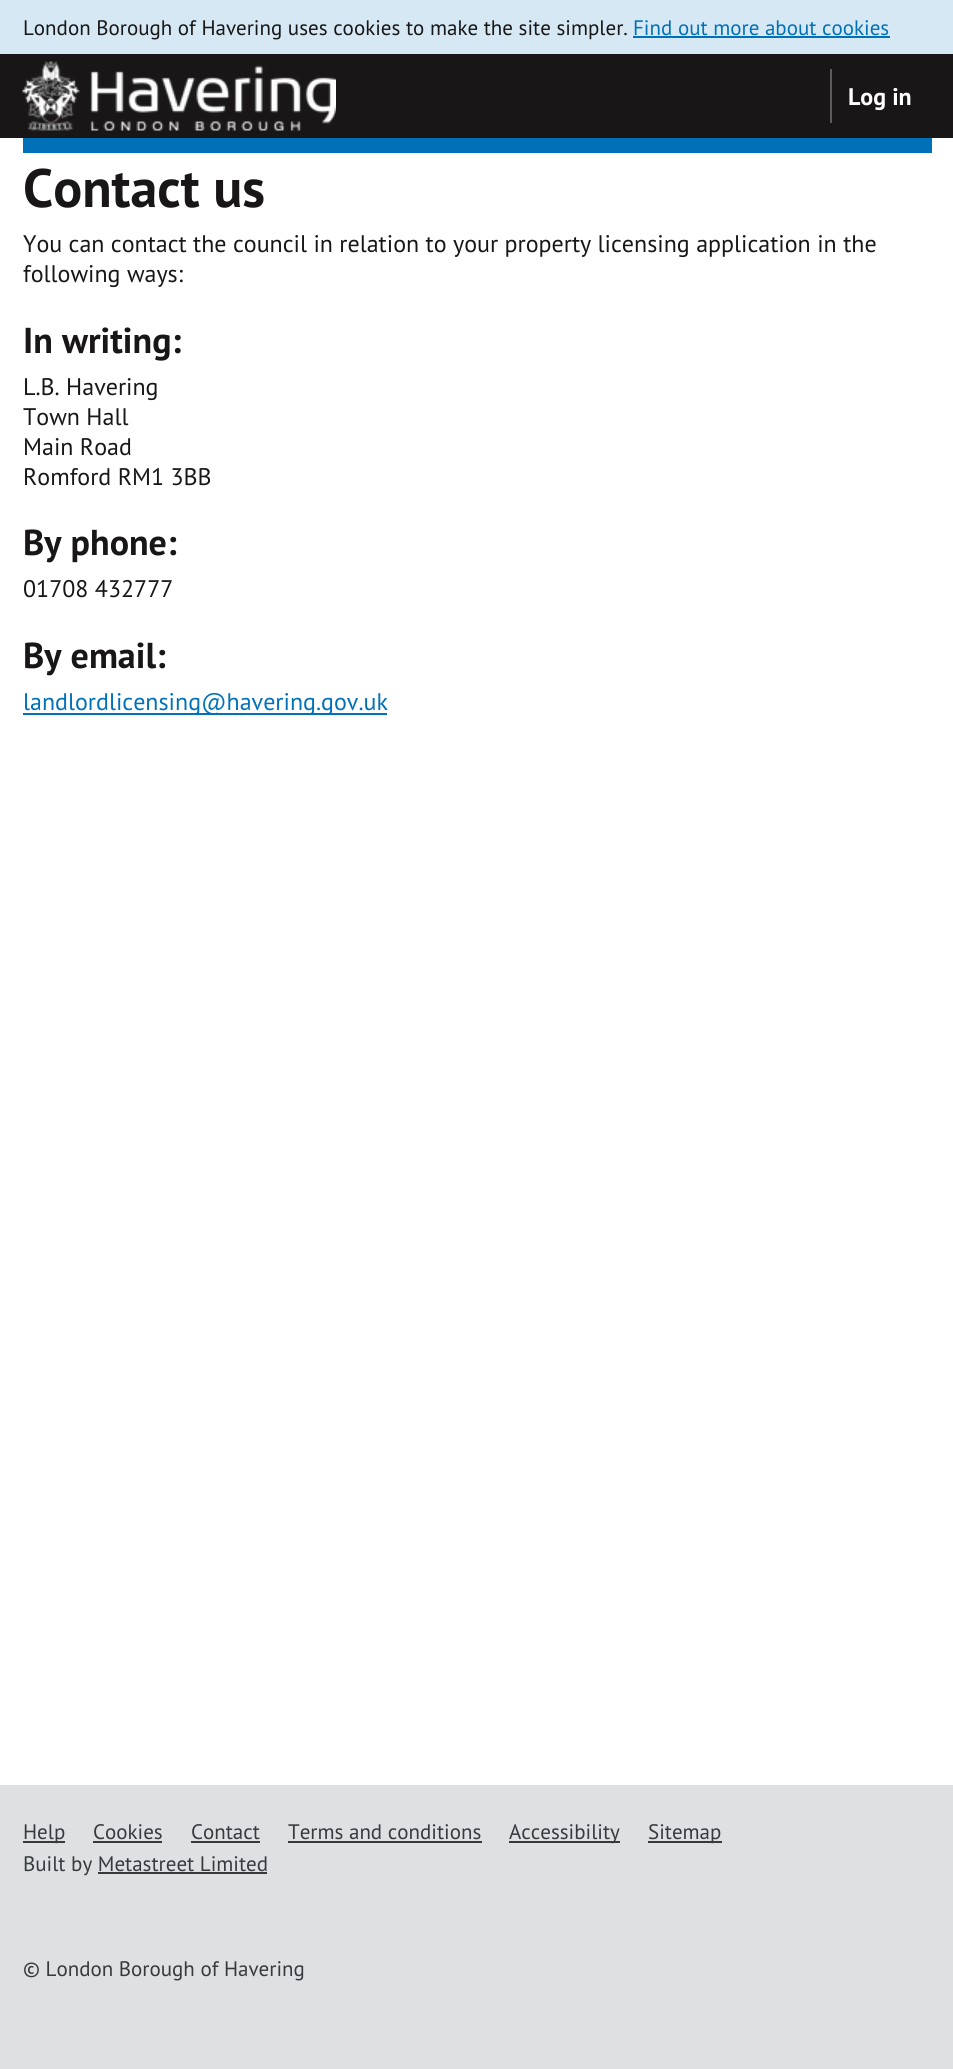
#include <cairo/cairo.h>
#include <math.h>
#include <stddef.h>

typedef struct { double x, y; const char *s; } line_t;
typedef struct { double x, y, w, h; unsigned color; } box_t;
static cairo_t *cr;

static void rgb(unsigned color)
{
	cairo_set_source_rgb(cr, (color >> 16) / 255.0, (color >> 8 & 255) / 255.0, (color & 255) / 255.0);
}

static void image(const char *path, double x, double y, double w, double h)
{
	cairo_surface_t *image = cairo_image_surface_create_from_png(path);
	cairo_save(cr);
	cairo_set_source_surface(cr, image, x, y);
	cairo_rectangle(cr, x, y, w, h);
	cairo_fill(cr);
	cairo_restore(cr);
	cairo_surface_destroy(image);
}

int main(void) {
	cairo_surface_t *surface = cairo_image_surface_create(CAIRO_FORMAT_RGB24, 953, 2069);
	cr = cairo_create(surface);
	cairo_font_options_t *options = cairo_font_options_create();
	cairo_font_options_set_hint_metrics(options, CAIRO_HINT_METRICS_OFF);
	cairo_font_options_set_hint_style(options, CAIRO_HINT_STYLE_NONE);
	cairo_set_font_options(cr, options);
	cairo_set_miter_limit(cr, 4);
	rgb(0xffffff);
	cairo_paint(cr);
	{
		static const box_t items[] = {
			{0, 0, 953, 54, 0xd5e8f3},
			{633, 36, 257, 2, 0x0071b9},
			{0, 54, 953, 84, 0x181616},
		};
		for (size_t i = 0; i < sizeof items / sizeof *items; i++) {
			rgb(items[i].color);
			cairo_rectangle(cr, items[i].x, items[i].y, items[i].w, items[i].h);
			cairo_fill(cr);
		}
	}
	image("img/1.png", 22, 61, 314, 70);
	{
		static const box_t items[] = {
			{830, 69, 2, 54, 0x5d5c5c},
			{23, 138, 909, 15, 0x0071b9},
			{23, 713, 364, 2, 0x0071b9},
			{0, 1785, 953, 284, 0xdee0e2},
			{23, 1841, 42, 2, 0x373a3d},
			{93, 1841, 69, 2, 0x373a3d},
			{191, 1841, 69, 2, 0x373a3d},
			{288, 1841, 194, 2, 0x373a3d},
			{509, 1841, 111, 2, 0x373a3d},
			{648, 1841, 74, 2, 0x373a3d},
			{98, 1872, 169, 2, 0x373a3d},
		};
		for (size_t i = 0; i < sizeof items / sizeof *items; i++) {
			rgb(items[i].color);
			cairo_rectangle(cr, items[i].x, items[i].y, items[i].w, items[i].h);
			cairo_fill(cr);
		}
	}
	cairo_select_font_face(cr, "PT Sans", CAIRO_FONT_SLANT_NORMAL, CAIRO_FONT_WEIGHT_NORMAL);
	cairo_set_font_size(cr, 21);
	rgb(0x181616);
	cairo_move_to(cr, 23, 35);
	cairo_show_text(cr, "London Borough of Havering uses cookies to make the site simpler.");
	rgb(0x0071b9);
	cairo_move_to(cr, 633, 35);
	cairo_show_text(cr, "Find out more about cookies");
	cairo_select_font_face(cr, "PT Sans", CAIRO_FONT_SLANT_NORMAL, CAIRO_FONT_WEIGHT_BOLD);
	cairo_set_font_size(cr, 24);
	rgb(0xffffff);
	cairo_move_to(cr, 848, 105);
	cairo_show_text(cr, "Log in");
	cairo_set_font_size(cr, 54);
	rgb(0x181616);
	cairo_move_to(cr, 23, 207);
	cairo_show_text(cr, "Contact us");
	cairo_select_font_face(cr, "PT Sans", CAIRO_FONT_SLANT_NORMAL, CAIRO_FONT_WEIGHT_NORMAL);
	cairo_set_font_size(cr, 24);
	cairo_move_to(cr, 23, 252);
	cairo_show_text(cr, "You can contact the council in relation to your property licensing application in the");
	cairo_move_to(cr, 23, 282);
	cairo_show_text(cr, "following ways:");
	cairo_select_font_face(cr, "PT Sans", CAIRO_FONT_SLANT_NORMAL, CAIRO_FONT_WEIGHT_BOLD);
	cairo_set_font_size(cr, 36);
	cairo_move_to(cr, 23, 353);
	cairo_show_text(cr, "In writing:");
	cairo_select_font_face(cr, "PT Sans", CAIRO_FONT_SLANT_NORMAL, CAIRO_FONT_WEIGHT_NORMAL);
	cairo_set_font_size(cr, 24);
	{
		static const line_t items[] = {
			{23, 395, "L.B. Havering"},
			{23, 425, "Town Hall"},
			{23, 455, "Main Road"},
			{23, 485, "Romford RM1 3BB"},
		};
		for (size_t i = 0; i < sizeof items / sizeof *items; i++) {
			cairo_move_to(cr, items[i].x, items[i].y);
			cairo_show_text(cr, items[i].s);
		}
	}
	cairo_select_font_face(cr, "PT Sans", CAIRO_FONT_SLANT_NORMAL, CAIRO_FONT_WEIGHT_BOLD);
	cairo_set_font_size(cr, 36);
	cairo_move_to(cr, 23, 555);
	cairo_show_text(cr, "By phone:");
	cairo_select_font_face(cr, "PT Sans", CAIRO_FONT_SLANT_NORMAL, CAIRO_FONT_WEIGHT_NORMAL);
	cairo_set_font_size(cr, 24);
	cairo_move_to(cr, 23, 597);
	cairo_show_text(cr, "01708 432777");
	cairo_select_font_face(cr, "PT Sans", CAIRO_FONT_SLANT_NORMAL, CAIRO_FONT_WEIGHT_BOLD);
	cairo_set_font_size(cr, 36);
	cairo_move_to(cr, 23, 668);
	cairo_show_text(cr, "By email:");
	cairo_select_font_face(cr, "PT Sans", CAIRO_FONT_SLANT_NORMAL, CAIRO_FONT_WEIGHT_NORMAL);
	cairo_set_font_size(cr, 24);
	rgb(0x0071b9);
	cairo_move_to(cr, 23, 710);
	cairo_show_text(cr, "landlordlicensing@havering.gov.uk");
	cairo_set_font_size(cr, 21);
	rgb(0x373a3d);
	{
		static const line_t items[] = {
			{23, 1839, "Help"},
			{93, 1839, "Cookies"},
			{191, 1839, "Contact"},
			{288, 1839, "Terms and conditions"},
			{509, 1839, "Accessibility"},
			{648, 1839, "Sitemap"},
			{23, 1871, "Built by Metastreet Limited"},
			{23, 1976, "© London Borough of Havering"},
		};
		for (size_t i = 0; i < sizeof items / sizeof *items; i++) {
			cairo_move_to(cr, items[i].x, items[i].y);
			cairo_show_text(cr, items[i].s);
		}
	}
	cairo_surface_write_to_png(surface, "page.png");
	cairo_font_options_destroy(options);
	cairo_destroy(cr);
	cairo_surface_destroy(surface);
	return 0;
}
